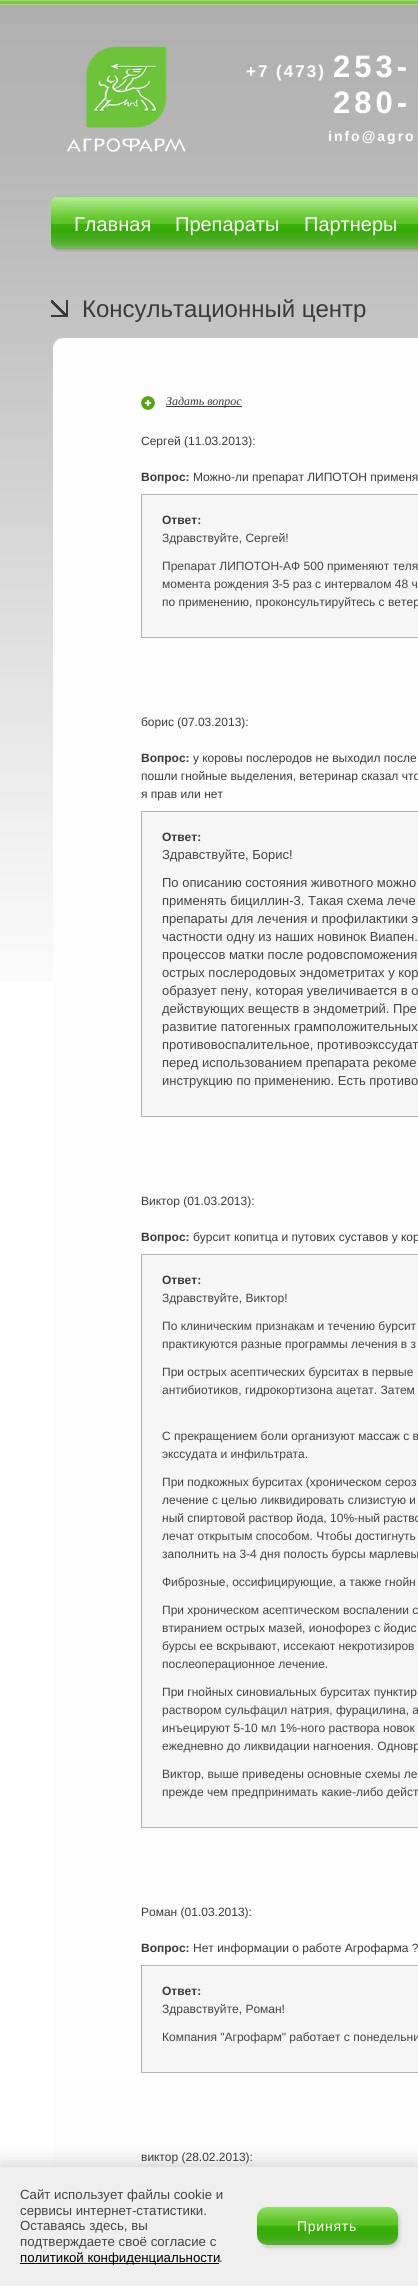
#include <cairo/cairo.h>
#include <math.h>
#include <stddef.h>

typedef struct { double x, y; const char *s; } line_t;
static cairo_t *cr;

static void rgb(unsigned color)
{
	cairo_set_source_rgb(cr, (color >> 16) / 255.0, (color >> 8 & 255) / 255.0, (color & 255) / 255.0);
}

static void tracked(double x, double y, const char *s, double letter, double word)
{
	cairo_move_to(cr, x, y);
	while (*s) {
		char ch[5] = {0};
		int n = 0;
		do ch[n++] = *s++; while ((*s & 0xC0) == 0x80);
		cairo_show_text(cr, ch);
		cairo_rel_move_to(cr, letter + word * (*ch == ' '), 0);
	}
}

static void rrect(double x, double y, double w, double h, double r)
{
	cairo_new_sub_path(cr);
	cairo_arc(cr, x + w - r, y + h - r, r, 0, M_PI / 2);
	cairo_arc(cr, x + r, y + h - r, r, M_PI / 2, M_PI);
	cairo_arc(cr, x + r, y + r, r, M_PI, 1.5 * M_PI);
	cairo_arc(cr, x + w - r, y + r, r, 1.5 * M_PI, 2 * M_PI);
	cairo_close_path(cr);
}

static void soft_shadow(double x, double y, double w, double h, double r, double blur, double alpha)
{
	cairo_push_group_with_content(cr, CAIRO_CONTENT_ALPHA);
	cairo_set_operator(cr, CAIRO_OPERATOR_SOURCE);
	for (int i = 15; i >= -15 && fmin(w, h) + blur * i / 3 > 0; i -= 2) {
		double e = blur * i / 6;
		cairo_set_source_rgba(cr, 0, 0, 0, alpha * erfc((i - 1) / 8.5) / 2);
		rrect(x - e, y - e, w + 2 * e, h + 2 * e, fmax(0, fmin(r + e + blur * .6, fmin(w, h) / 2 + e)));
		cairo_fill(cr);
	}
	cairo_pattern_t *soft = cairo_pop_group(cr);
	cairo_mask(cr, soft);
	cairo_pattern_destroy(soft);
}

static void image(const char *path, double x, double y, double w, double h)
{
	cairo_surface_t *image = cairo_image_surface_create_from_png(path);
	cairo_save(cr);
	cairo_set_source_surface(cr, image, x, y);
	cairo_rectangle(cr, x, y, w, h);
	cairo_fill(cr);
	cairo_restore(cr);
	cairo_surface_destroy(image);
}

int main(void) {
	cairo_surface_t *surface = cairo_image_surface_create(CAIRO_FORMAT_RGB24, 418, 2286);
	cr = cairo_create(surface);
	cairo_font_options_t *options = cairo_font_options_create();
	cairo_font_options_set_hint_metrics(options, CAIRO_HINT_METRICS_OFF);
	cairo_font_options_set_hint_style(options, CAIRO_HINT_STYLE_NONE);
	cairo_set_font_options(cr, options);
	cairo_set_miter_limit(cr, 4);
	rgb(0xffffff);
	cairo_paint(cr);
	image("img/1.png", 0, 0, 418, 982);
	image("img/2.png", 67, 46, 119, 106);
	image("img/3.png", 51, 196, 367, 56);
	image("img/4.png", 51, 300, 17, 17);
	rgb(0xfdfdfd);
	rrect(53, 338, 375, 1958, 10);
	cairo_fill(cr);
	image("img/5.png", 141, 396, 14, 14);
	rgb(0x3b3b3b);
	cairo_rectangle(cr, 166, 406, 76, 1);
	cairo_fill(cr);
	rgb(0xf6f6f6);
	cairo_rectangle(cr, 141.5, 494.5, 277, 143);
	cairo_fill_preserve(cr);
	rgb(0xb4b4b4);
	cairo_set_line_width(cr, 1);
	cairo_stroke(cr);
	rgb(0xf6f6f6);
	cairo_rectangle(cr, 141.5, 811.5, 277, 305);
	cairo_fill_preserve(cr);
	rgb(0xb4b4b4);
	cairo_stroke(cr);
	rgb(0xf6f6f6);
	cairo_rectangle(cr, 141.5, 1254.5, 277, 573);
	cairo_fill_preserve(cr);
	rgb(0xb4b4b4);
	cairo_stroke(cr);
	rgb(0xf6f6f6);
	cairo_rectangle(cr, 141.5, 1965.5, 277, 107);
	cairo_fill_preserve(cr);
	rgb(0xb4b4b4);
	cairo_stroke(cr);
	rgb(0x000000);
	soft_shadow(0, 2165, 418, 119, 0, 10, 0.2);
	rgb(0xf0eff0);
	cairo_rectangle(cr, 0, 2167, 418, 119);
	cairo_fill(cr);
	rgb(0x000000);
	cairo_rectangle(cr, 20, 2263, 199, 1);
	cairo_fill(cr);
	rgb(0x000000);
	soft_shadow(259, 2210, 141, 38, 10, 2, 0.15);
	image("img/6.png", 257, 2207, 141, 38);
	cairo_select_font_face(cr, "Liberation Sans", CAIRO_FONT_SLANT_NORMAL, CAIRO_FONT_WEIGHT_BOLD);
	cairo_set_font_size(cr, 17);
	rgb(0xffffff);
	tracked(246, 77, "+7 (473)", 2, 0);
	cairo_set_font_size(cr, 31);
	tracked(333, 77, "253-", 4, 0);
	tracked(333, 113, "280-", 4, 0);
	cairo_set_font_size(cr, 14);
	tracked(328, 141, "info@agro", 2, 0);
	cairo_select_font_face(cr, "Liberation Sans", CAIRO_FONT_SLANT_NORMAL, CAIRO_FONT_WEIGHT_NORMAL);
	cairo_set_font_size(cr, 20);
	{
		static const line_t items[] = {
			{74, 231, "Главная"},
			{175, 231, "Препараты"},
			{304, 231, "Партнеры"},
		};
		for (size_t i = 0; i < sizeof items / sizeof *items; i++) {
			cairo_move_to(cr, items[i].x, items[i].y);
			cairo_show_text(cr, items[i].s);
		}
	}
	cairo_set_font_size(cr, 24);
	rgb(0x3b3b3b);
	cairo_move_to(cr, 82, 317);
	cairo_show_text(cr, "Консультационный центр");
	cairo_select_font_face(cr, "Liberation Serif", CAIRO_FONT_SLANT_ITALIC, CAIRO_FONT_WEIGHT_NORMAL);
	cairo_set_font_size(cr, 12);
	cairo_move_to(cr, 166, 405);
	cairo_show_text(cr, "Задать вопрос");
	cairo_select_font_face(cr, "Liberation Sans", CAIRO_FONT_SLANT_NORMAL, CAIRO_FONT_WEIGHT_NORMAL);
	cairo_move_to(cr, 141, 445);
	cairo_show_text(cr, "Сергей (11.03.2013):");
	cairo_select_font_face(cr, "Liberation Sans", CAIRO_FONT_SLANT_NORMAL, CAIRO_FONT_WEIGHT_BOLD);
	cairo_move_to(cr, 141, 481);
	cairo_show_text(cr, "Вопрос:");
	cairo_select_font_face(cr, "Liberation Sans", CAIRO_FONT_SLANT_NORMAL, CAIRO_FONT_WEIGHT_NORMAL);
	cairo_move_to(cr, 193, 481);
	cairo_show_text(cr, "Можно-ли препарат ЛИПОТОН применя");
	cairo_select_font_face(cr, "Liberation Sans", CAIRO_FONT_SLANT_NORMAL, CAIRO_FONT_WEIGHT_BOLD);
	cairo_move_to(cr, 162, 524);
	cairo_show_text(cr, "Ответ:");
	cairo_select_font_face(cr, "Liberation Sans", CAIRO_FONT_SLANT_NORMAL, CAIRO_FONT_WEIGHT_NORMAL);
	rgb(0x444444);
	{
		static const line_t items[] = {
			{162, 542, "Здравствуйте, Сергей!"},
			{162, 570, "Препарат ЛИПОТОН-АФ 500 применяют теля"},
			{162, 588, "момента рождения 3-5 раз с интервалом 48 ч"},
			{162, 606, "по применению, проконсультируйтесь с ветер"},
		};
		for (size_t i = 0; i < sizeof items / sizeof *items; i++) {
			cairo_move_to(cr, items[i].x, items[i].y);
			cairo_show_text(cr, items[i].s);
		}
	}
	rgb(0x3b3b3b);
	cairo_move_to(cr, 141, 726);
	cairo_show_text(cr, "борис (07.03.2013):");
	cairo_select_font_face(cr, "Liberation Sans", CAIRO_FONT_SLANT_NORMAL, CAIRO_FONT_WEIGHT_BOLD);
	cairo_move_to(cr, 141, 762);
	cairo_show_text(cr, "Вопрос:");
	cairo_select_font_face(cr, "Liberation Sans", CAIRO_FONT_SLANT_NORMAL, CAIRO_FONT_WEIGHT_NORMAL);
	{
		static const line_t items[] = {
			{193, 762, "у коровы послеродов не выходил после"},
			{141, 780, "пошли гнойные выделения, ветеринар сказал что"},
			{141, 798, "я прав или нет"},
		};
		for (size_t i = 0; i < sizeof items / sizeof *items; i++) {
			cairo_move_to(cr, items[i].x, items[i].y);
			cairo_show_text(cr, items[i].s);
		}
	}
	cairo_select_font_face(cr, "Liberation Sans", CAIRO_FONT_SLANT_NORMAL, CAIRO_FONT_WEIGHT_BOLD);
	cairo_move_to(cr, 162, 841);
	cairo_show_text(cr, "Ответ:");
	cairo_select_font_face(cr, "Liberation Sans", CAIRO_FONT_SLANT_NORMAL, CAIRO_FONT_WEIGHT_NORMAL);
	cairo_set_font_size(cr, 13);
	rgb(0x444444);
	{
		static const line_t items[] = {
			{162, 859, "Здравствуйте, Борис!"},
			{162, 887, "По описанию состояния животного можно"},
			{162, 905, "применять бициллин-3. Такая схема лече"},
			{162, 923, "препараты для лечения и профилактики э"},
			{162, 941, "частности одну из наших новинок Виапен."},
			{162, 959, "процессов матки после родовспоможения"},
			{162, 977, "острых послеродовых эндометритах у кор"},
			{162, 995, "образует пену, которая увеличивается в о"},
			{162, 1013, "действующих веществ в эндометрий. Пре"},
			{162, 1031, "развитие патогенных грамположительных"},
			{162, 1049, "противовоспалительное, противоэкссудат"},
			{162, 1067, "перед использованием препарата рекоме"},
			{162, 1085, "инструкцию по применению. Есть противо"},
		};
		for (size_t i = 0; i < sizeof items / sizeof *items; i++) {
			cairo_move_to(cr, items[i].x, items[i].y);
			cairo_show_text(cr, items[i].s);
		}
	}
	cairo_set_font_size(cr, 12);
	rgb(0x3b3b3b);
	cairo_move_to(cr, 141, 1205);
	cairo_show_text(cr, "Виктор (01.03.2013):");
	cairo_select_font_face(cr, "Liberation Sans", CAIRO_FONT_SLANT_NORMAL, CAIRO_FONT_WEIGHT_BOLD);
	cairo_move_to(cr, 141, 1241);
	cairo_show_text(cr, "Вопрос:");
	cairo_select_font_face(cr, "Liberation Sans", CAIRO_FONT_SLANT_NORMAL, CAIRO_FONT_WEIGHT_NORMAL);
	cairo_move_to(cr, 193, 1241);
	cairo_show_text(cr, "бурсит копитца и путових суставов у кор");
	cairo_select_font_face(cr, "Liberation Sans", CAIRO_FONT_SLANT_NORMAL, CAIRO_FONT_WEIGHT_BOLD);
	cairo_move_to(cr, 162, 1284);
	cairo_show_text(cr, "Ответ:");
	cairo_select_font_face(cr, "Liberation Sans", CAIRO_FONT_SLANT_NORMAL, CAIRO_FONT_WEIGHT_NORMAL);
	rgb(0x444444);
	{
		static const line_t items[] = {
			{162, 1302, "Здравствуйте, Виктор!"},
			{162, 1330, "По клиническим признакам и течению бурсит"},
			{162, 1348, "практикуются разные программы лечения в з"},
			{162, 1376, "При острых асептических бурситах в первые"},
			{162, 1394, "антибиотиков, гидрокортизона ацетат. Затем"},
			{162, 1440, "С прекращением боли организуют массаж с в"},
			{162, 1458, "экссудата и инфильтрата."},
			{162, 1486, "При подкожных бурситах (хроническом сероз"},
			{162, 1504, "лечение с целью ликвидировать слизистую и"},
			{162, 1522, "ный спиртовой раствор йода, 10%-ный раство"},
			{162, 1540, "лечат открытым способом. Чтобы достигнуть"},
			{162, 1558, "заполнить на 3-4 дня полость бурсы марлевы"},
			{162, 1586, "Фиброзные, оссифицирующие, а также гнойн"},
			{162, 1614, "При хроническом асептическом воспалении с"},
			{162, 1632, "втиранием острых мазей, ионофорез с йодис"},
			{162, 1650, "бурсы ее вскрывают, иссекают некротизиров"},
			{162, 1668, "послеоперационное лечение."},
			{162, 1696, "При гнойных синовиальных бурситах пунктир"},
			{162, 1714, "раствором сульфацил натрия, фурацилина, а"},
			{162, 1732, "инъецируют 5-10 мл 1%-ного раствора новок"},
			{162, 1750, "ежедневно до ликвидации нагноения. Одновр"},
			{162, 1778, "Виктор, выше приведены основные схемы ле"},
			{162, 1796, "прежде чем предпринимать какие-либо дейст"},
		};
		for (size_t i = 0; i < sizeof items / sizeof *items; i++) {
			cairo_move_to(cr, items[i].x, items[i].y);
			cairo_show_text(cr, items[i].s);
		}
	}
	rgb(0x3b3b3b);
	cairo_move_to(cr, 141, 1916);
	cairo_show_text(cr, "Роман (01.03.2013):");
	cairo_select_font_face(cr, "Liberation Sans", CAIRO_FONT_SLANT_NORMAL, CAIRO_FONT_WEIGHT_BOLD);
	cairo_move_to(cr, 141, 1952);
	cairo_show_text(cr, "Вопрос:");
	cairo_select_font_face(cr, "Liberation Sans", CAIRO_FONT_SLANT_NORMAL, CAIRO_FONT_WEIGHT_NORMAL);
	cairo_move_to(cr, 193, 1952);
	cairo_show_text(cr, "Нет информации о работе Агрофарма ?");
	cairo_select_font_face(cr, "Liberation Sans", CAIRO_FONT_SLANT_NORMAL, CAIRO_FONT_WEIGHT_BOLD);
	cairo_move_to(cr, 162, 1995);
	cairo_show_text(cr, "Ответ:");
	cairo_select_font_face(cr, "Liberation Sans", CAIRO_FONT_SLANT_NORMAL, CAIRO_FONT_WEIGHT_NORMAL);
	rgb(0x444444);
	cairo_move_to(cr, 162, 2013);
	cairo_show_text(cr, "Здравствуйте, Роман!");
	cairo_move_to(cr, 162, 2041);
	cairo_show_text(cr, "Компания \"Агрофарм\" работает с понедельни");
	rgb(0x3b3b3b);
	cairo_move_to(cr, 141, 2161);
	cairo_show_text(cr, "виктор (28.02.2013):");
	cairo_set_font_size(cr, 13.25);
	rgb(0x444444);
	{
		static const line_t items[] = {
			{20, 2199, "Сайт использует файлы cookie и"},
			{20, 2215, "сервисы интернет-статистики."},
			{20, 2230, "Оставаясь здесь, вы"},
			{20, 2246, "подтверждаете своё согласие с"},
		};
		for (size_t i = 0; i < sizeof items / sizeof *items; i++) {
			cairo_move_to(cr, items[i].x, items[i].y);
			cairo_show_text(cr, items[i].s);
		}
	}
	rgb(0x000000);
	cairo_move_to(cr, 20, 2262);
	cairo_show_text(cr, "политикой конфиденциальности");
	rgb(0x444444);
	cairo_move_to(cr, 219, 2262);
	cairo_show_text(cr, ".");
	cairo_set_font_size(cr, 14);
	rgb(0xffffff);
	tracked(297, 2231, "Принять", 0.75, 0);
	cairo_surface_write_to_png(surface, "page.png");
	cairo_font_options_destroy(options);
	cairo_destroy(cr);
	cairo_surface_destroy(surface);
	return 0;
}
